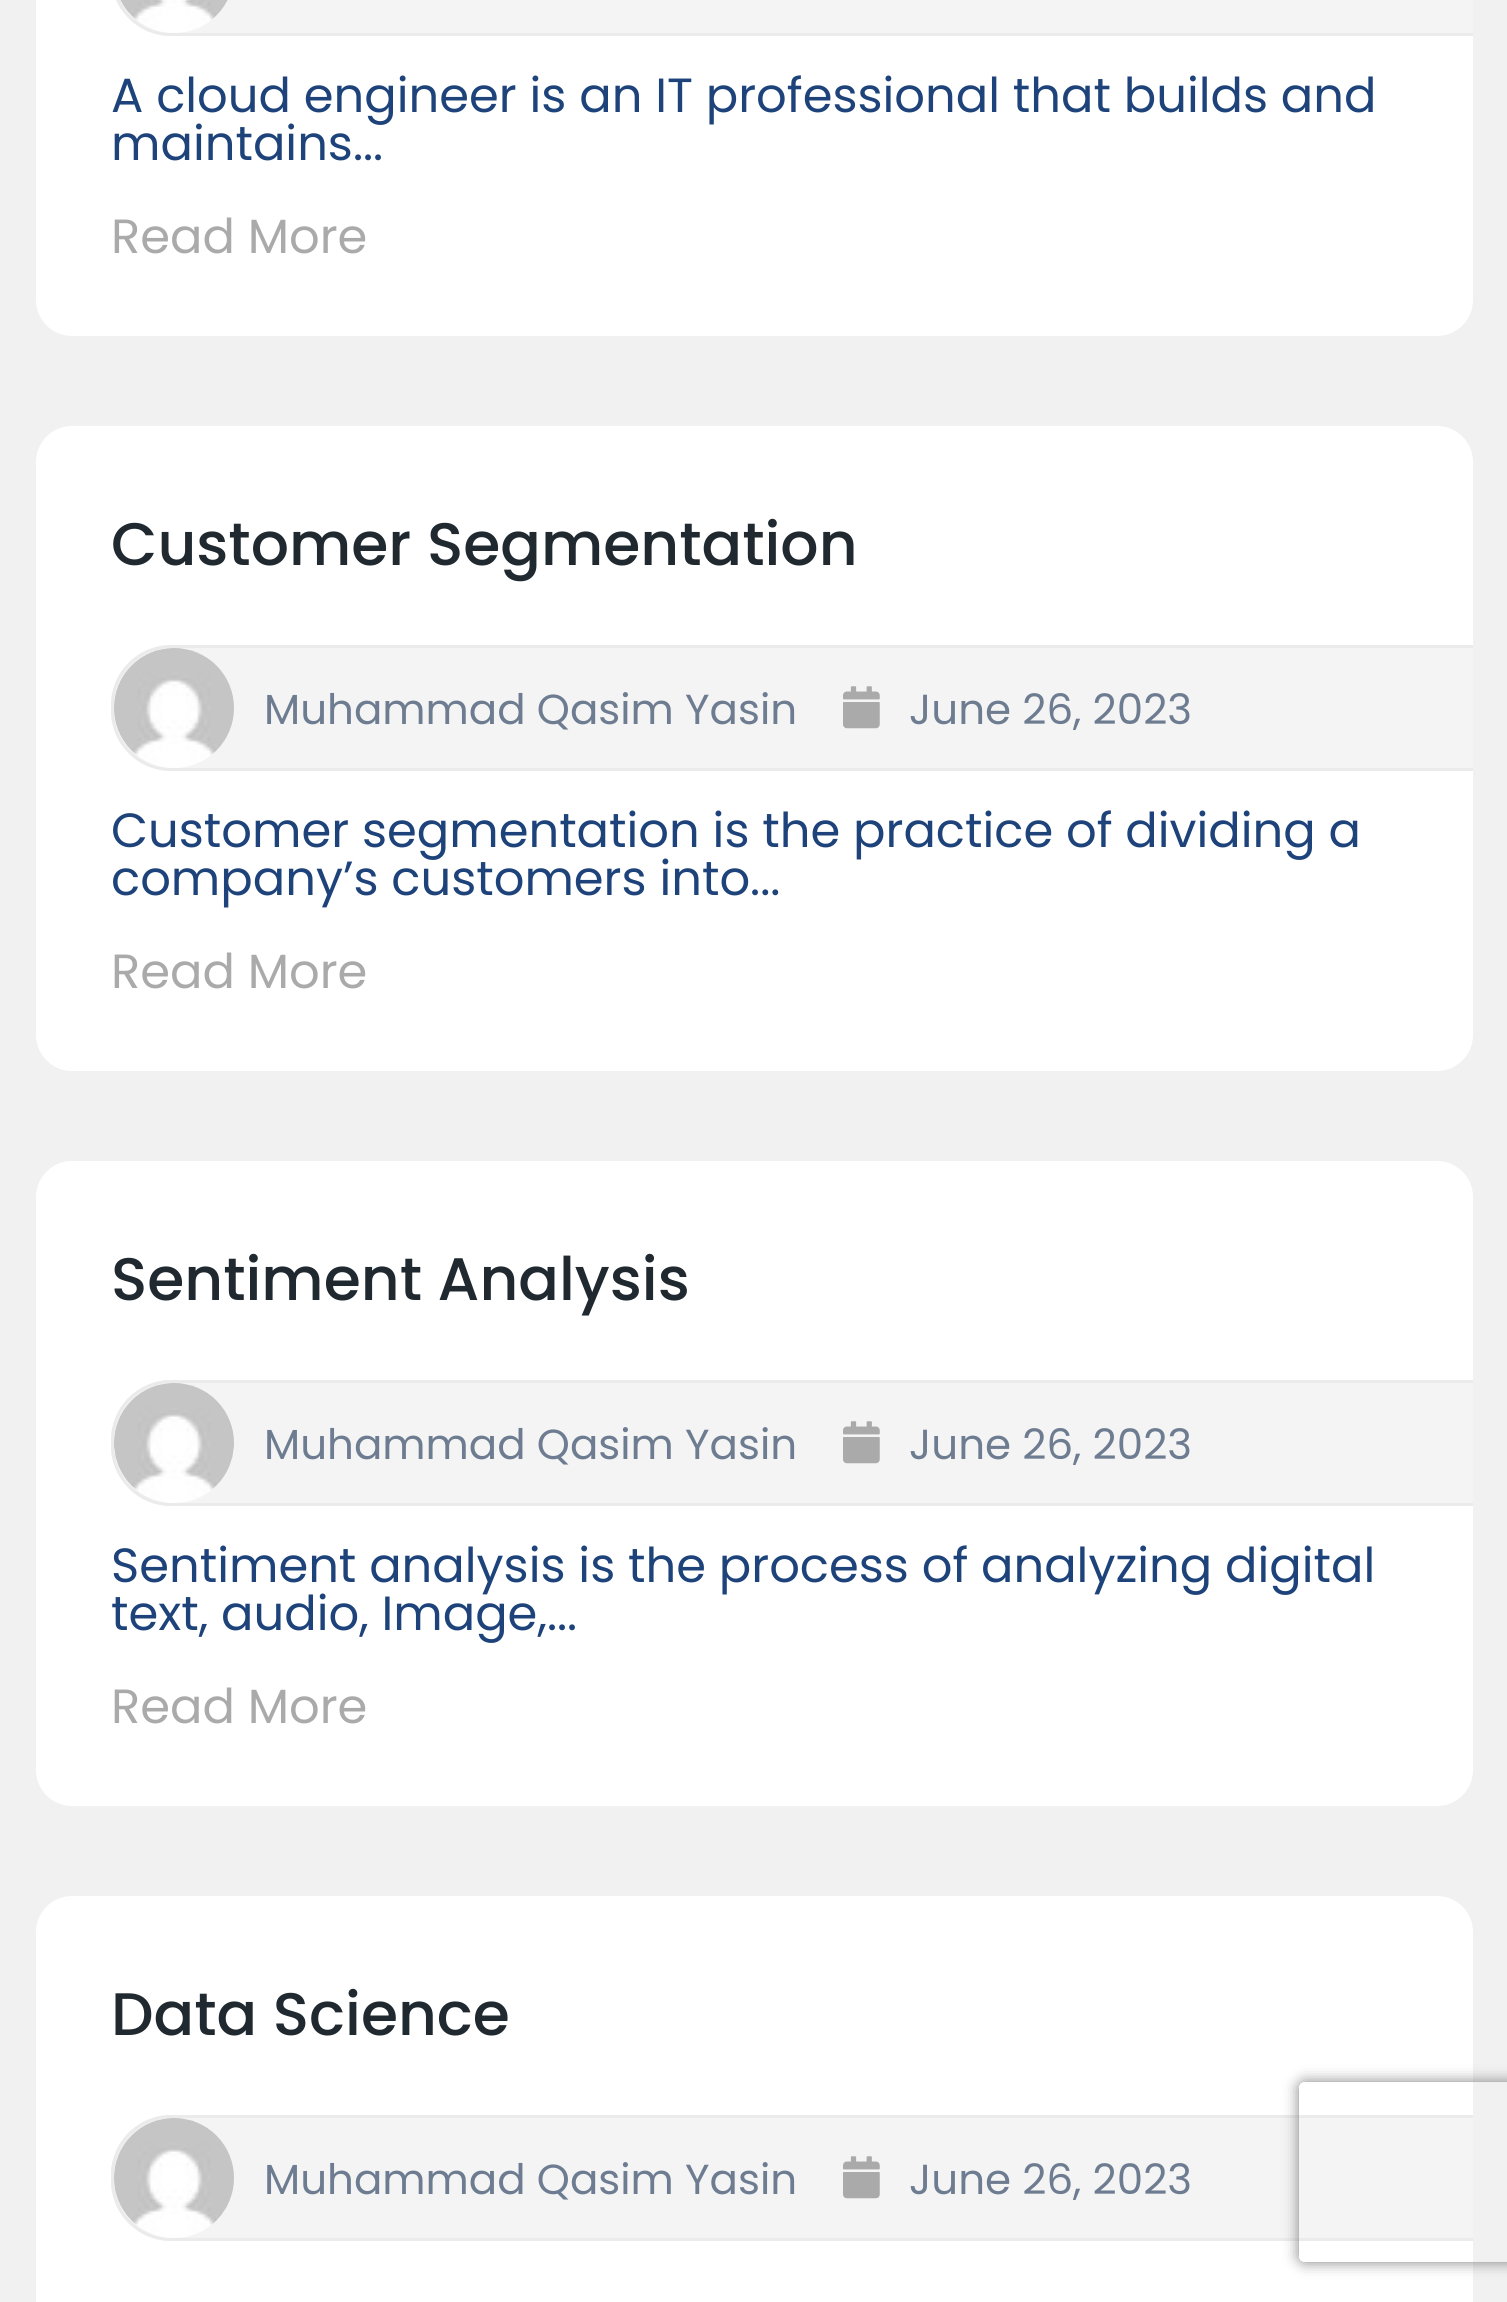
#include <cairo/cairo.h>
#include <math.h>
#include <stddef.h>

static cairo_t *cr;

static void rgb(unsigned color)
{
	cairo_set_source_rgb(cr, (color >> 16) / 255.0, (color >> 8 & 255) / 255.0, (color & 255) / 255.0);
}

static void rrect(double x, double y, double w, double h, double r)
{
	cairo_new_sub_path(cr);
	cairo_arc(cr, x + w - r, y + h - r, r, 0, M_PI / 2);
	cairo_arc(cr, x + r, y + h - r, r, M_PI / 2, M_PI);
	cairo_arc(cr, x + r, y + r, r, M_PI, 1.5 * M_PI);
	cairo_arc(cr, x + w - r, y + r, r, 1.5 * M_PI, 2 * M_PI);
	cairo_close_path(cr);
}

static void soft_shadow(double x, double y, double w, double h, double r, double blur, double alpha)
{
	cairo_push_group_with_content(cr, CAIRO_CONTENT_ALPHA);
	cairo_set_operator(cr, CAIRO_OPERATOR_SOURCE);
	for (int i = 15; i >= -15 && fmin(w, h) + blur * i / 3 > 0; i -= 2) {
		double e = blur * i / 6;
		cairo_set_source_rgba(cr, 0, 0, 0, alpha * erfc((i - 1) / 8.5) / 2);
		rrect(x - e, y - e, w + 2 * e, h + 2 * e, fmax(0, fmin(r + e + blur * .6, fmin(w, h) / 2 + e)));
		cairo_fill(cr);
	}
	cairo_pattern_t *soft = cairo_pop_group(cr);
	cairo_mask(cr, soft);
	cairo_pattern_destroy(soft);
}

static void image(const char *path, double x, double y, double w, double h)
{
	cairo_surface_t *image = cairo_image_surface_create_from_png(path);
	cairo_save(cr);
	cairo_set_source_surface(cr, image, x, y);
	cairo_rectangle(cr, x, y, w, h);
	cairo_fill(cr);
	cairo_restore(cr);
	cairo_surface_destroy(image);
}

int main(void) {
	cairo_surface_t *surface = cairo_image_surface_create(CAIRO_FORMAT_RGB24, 1507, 2302);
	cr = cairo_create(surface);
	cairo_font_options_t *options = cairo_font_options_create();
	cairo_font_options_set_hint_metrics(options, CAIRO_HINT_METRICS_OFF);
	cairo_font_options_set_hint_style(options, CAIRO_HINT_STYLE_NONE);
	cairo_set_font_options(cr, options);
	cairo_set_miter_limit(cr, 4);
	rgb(0xf1f1f1);
	cairo_paint(cr);
	rgb(0xffffff);
	rrect(36, -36, 1437, 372, 36);
	cairo_fill(cr);
	rgb(0xf4f4f4);
	cairo_new_path(cr);
	cairo_move_to(cr, 171, -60);
	cairo_line_to(cr, 1473, -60);
	cairo_line_to(cr, 1473, 36);
	cairo_line_to(cr, 171, 36);
	cairo_curve_to(cr, 138, 36, 111, 9, 111, -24);
	cairo_line_to(cr, 111, 0);
	cairo_curve_to(cr, 111, -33, 138, -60, 171, -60);
	cairo_close_path(cr);
	cairo_fill(cr);
	rgb(0xebebeb);
	cairo_set_fill_rule(cr, CAIRO_FILL_RULE_EVEN_ODD);
	cairo_new_path(cr);
	cairo_move_to(cr, 171, -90);
	cairo_line_to(cr, 1473, -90);
	cairo_line_to(cr, 1473, 36);
	cairo_line_to(cr, 171, 36);
	cairo_curve_to(cr, 138, 36, 111, 9, 111, -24);
	cairo_line_to(cr, 111, -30);
	cairo_curve_to(cr, 111, -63, 138, -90, 171, -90);
	cairo_close_path(cr);
	cairo_move_to(cr, 171, -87);
	cairo_line_to(cr, 1473, -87);
	cairo_line_to(cr, 1473, 33);
	cairo_line_to(cr, 171, 33);
	cairo_curve_to(cr, 140, 33, 114, 7, 114, -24);
	cairo_line_to(cr, 114, -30);
	cairo_curve_to(cr, 114, -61, 140, -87, 171, -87);
	cairo_close_path(cr);
	cairo_fill(cr);
	image("img/1.png", 120, 0, 108, 33);
	rgb(0xffffff);
	rrect(36, 426, 1437, 645, 36);
	cairo_fill(cr);
	rgb(0xf4f4f4);
	cairo_new_path(cr);
	cairo_move_to(cr, 171, 645);
	cairo_line_to(cr, 1473, 645);
	cairo_line_to(cr, 1473, 771);
	cairo_line_to(cr, 171, 771);
	cairo_curve_to(cr, 138, 771, 111, 744, 111, 711);
	cairo_line_to(cr, 111, 705);
	cairo_curve_to(cr, 111, 672, 138, 645, 171, 645);
	cairo_close_path(cr);
	cairo_fill(cr);
	rgb(0xebebeb);
	cairo_new_path(cr);
	cairo_move_to(cr, 171, 645);
	cairo_line_to(cr, 1473, 645);
	cairo_line_to(cr, 1473, 771);
	cairo_line_to(cr, 171, 771);
	cairo_curve_to(cr, 138, 771, 111, 744, 111, 711);
	cairo_line_to(cr, 111, 705);
	cairo_curve_to(cr, 111, 672, 138, 645, 171, 645);
	cairo_close_path(cr);
	cairo_move_to(cr, 171, 648);
	cairo_line_to(cr, 1473, 648);
	cairo_line_to(cr, 1473, 768);
	cairo_line_to(cr, 171, 768);
	cairo_curve_to(cr, 140, 768, 114, 742, 114, 711);
	cairo_line_to(cr, 114, 705);
	cairo_curve_to(cr, 114, 674, 140, 648, 171, 648);
	cairo_close_path(cr);
	cairo_fill(cr);
	image("img/2.png", 114, 648, 120, 120);
	image("img/3.png", 843, 686, 37, 43);
	rgb(0xffffff);
	rrect(36, 1161, 1437, 645, 36);
	cairo_fill(cr);
	rgb(0xf4f4f4);
	cairo_new_path(cr);
	cairo_move_to(cr, 171, 1380);
	cairo_line_to(cr, 1473, 1380);
	cairo_line_to(cr, 1473, 1506);
	cairo_line_to(cr, 171, 1506);
	cairo_curve_to(cr, 138, 1506, 111, 1479, 111, 1446);
	cairo_line_to(cr, 111, 1440);
	cairo_curve_to(cr, 111, 1407, 138, 1380, 171, 1380);
	cairo_close_path(cr);
	cairo_fill(cr);
	rgb(0xebebeb);
	cairo_new_path(cr);
	cairo_move_to(cr, 171, 1380);
	cairo_line_to(cr, 1473, 1380);
	cairo_line_to(cr, 1473, 1506);
	cairo_line_to(cr, 171, 1506);
	cairo_curve_to(cr, 138, 1506, 111, 1479, 111, 1446);
	cairo_line_to(cr, 111, 1440);
	cairo_curve_to(cr, 111, 1407, 138, 1380, 171, 1380);
	cairo_close_path(cr);
	cairo_move_to(cr, 171, 1383);
	cairo_line_to(cr, 1473, 1383);
	cairo_line_to(cr, 1473, 1503);
	cairo_line_to(cr, 171, 1503);
	cairo_curve_to(cr, 140, 1503, 114, 1477, 114, 1446);
	cairo_line_to(cr, 114, 1440);
	cairo_curve_to(cr, 114, 1409, 140, 1383, 171, 1383);
	cairo_close_path(cr);
	cairo_fill(cr);
	image("img/4.png", 114, 1383, 120, 120);
	image("img/3.png", 843, 1421, 37, 43);
	rgb(0xffffff);
	rrect(36, 1896, 1437, 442, 36);
	cairo_fill(cr);
	rgb(0xf4f4f4);
	cairo_new_path(cr);
	cairo_move_to(cr, 171, 2115);
	cairo_line_to(cr, 1473, 2115);
	cairo_line_to(cr, 1473, 2241);
	cairo_line_to(cr, 171, 2241);
	cairo_curve_to(cr, 138, 2241, 111, 2214, 111, 2181);
	cairo_line_to(cr, 111, 2175);
	cairo_curve_to(cr, 111, 2142, 138, 2115, 171, 2115);
	cairo_close_path(cr);
	cairo_fill(cr);
	rgb(0xebebeb);
	cairo_new_path(cr);
	cairo_move_to(cr, 171, 2115);
	cairo_line_to(cr, 1473, 2115);
	cairo_line_to(cr, 1473, 2241);
	cairo_line_to(cr, 171, 2241);
	cairo_curve_to(cr, 138, 2241, 111, 2214, 111, 2181);
	cairo_line_to(cr, 111, 2175);
	cairo_curve_to(cr, 111, 2142, 138, 2115, 171, 2115);
	cairo_close_path(cr);
	cairo_move_to(cr, 171, 2118);
	cairo_line_to(cr, 1473, 2118);
	cairo_line_to(cr, 1473, 2238);
	cairo_line_to(cr, 171, 2238);
	cairo_curve_to(cr, 140, 2238, 114, 2212, 114, 2181);
	cairo_line_to(cr, 114, 2175);
	cairo_curve_to(cr, 114, 2144, 140, 2118, 171, 2118);
	cairo_close_path(cr);
	cairo_fill(cr);
	image("img/5.png", 114, 2118, 120, 120);
	image("img/3.png", 843, 2156, 37, 43);
	cairo_save(cr);
	cairo_new_path(cr);
	cairo_move_to(cr, 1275, 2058);
	cairo_line_to(cr, 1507, 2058);
	cairo_line_to(cr, 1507, 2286);
	cairo_line_to(cr, 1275, 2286);
	cairo_close_path(cr);
	cairo_move_to(cr, 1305, 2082);
	cairo_line_to(cr, 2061, 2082);
	cairo_curve_to(cr, 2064.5, 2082, 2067, 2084.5, 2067, 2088);
	cairo_line_to(cr, 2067, 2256);
	cairo_curve_to(cr, 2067, 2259.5, 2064.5, 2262, 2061, 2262);
	cairo_line_to(cr, 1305, 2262);
	cairo_curve_to(cr, 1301.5, 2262, 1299, 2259.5, 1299, 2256);
	cairo_line_to(cr, 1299, 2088);
	cairo_curve_to(cr, 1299, 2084.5, 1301.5, 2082, 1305, 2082);
	cairo_close_path(cr);
	cairo_clip(cr);
	rgb(0x808080);
	soft_shadow(1299, 2082, 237, 180, 6, 7.5, 1);
	cairo_restore(cr);
	cairo_select_font_face(cr, "Poppins", CAIRO_FONT_SLANT_NORMAL, CAIRO_FONT_WEIGHT_NORMAL);
	cairo_set_font_size(cr, 48);
	rgb(0x1d437a);
	cairo_move_to(cr, 111, 112);
	cairo_show_text(cr, "A cloud engineer is an IT professional that builds and");
	cairo_move_to(cr, 111, 160);
	cairo_show_text(cr, "maintains...");
	rgb(0xaaaaaa);
	cairo_move_to(cr, 111, 253);
	cairo_show_text(cr, "Read More");
	cairo_select_font_face(cr, "Poppins Medium", CAIRO_FONT_SLANT_NORMAL, CAIRO_FONT_WEIGHT_NORMAL);
	cairo_set_font_size(cr, 60);
	rgb(0x20292f);
	cairo_move_to(cr, 111, 565);
	cairo_show_text(cr, "Customer Segmentation");
	cairo_select_font_face(cr, "Poppins", CAIRO_FONT_SLANT_NORMAL, CAIRO_FONT_WEIGHT_NORMAL);
	cairo_set_font_size(cr, 42);
	rgb(0x6d7c90);
	cairo_move_to(cr, 264, 724);
	cairo_show_text(cr, "Muhammad Qasim Yasin");
	cairo_move_to(cr, 909, 724);
	cairo_show_text(cr, "June 26, 2023");
	cairo_set_font_size(cr, 48);
	rgb(0x1d437a);
	cairo_move_to(cr, 111, 847);
	cairo_show_text(cr, "Customer segmentation is the practice of dividing a");
	cairo_move_to(cr, 111, 895);
	cairo_show_text(cr, "company’s customers into...");
	rgb(0xaaaaaa);
	cairo_move_to(cr, 111, 988);
	cairo_show_text(cr, "Read More");
	cairo_select_font_face(cr, "Poppins Medium", CAIRO_FONT_SLANT_NORMAL, CAIRO_FONT_WEIGHT_NORMAL);
	cairo_set_font_size(cr, 60);
	rgb(0x20292f);
	cairo_move_to(cr, 111, 1300);
	cairo_show_text(cr, "Sentiment Analysis");
	cairo_select_font_face(cr, "Poppins", CAIRO_FONT_SLANT_NORMAL, CAIRO_FONT_WEIGHT_NORMAL);
	cairo_set_font_size(cr, 42);
	rgb(0x6d7c90);
	cairo_move_to(cr, 264, 1459);
	cairo_show_text(cr, "Muhammad Qasim Yasin");
	cairo_move_to(cr, 909, 1459);
	cairo_show_text(cr, "June 26, 2023");
	cairo_set_font_size(cr, 48);
	rgb(0x1d437a);
	cairo_move_to(cr, 111, 1582);
	cairo_show_text(cr, "Sentiment analysis is the process of analyzing digital");
	cairo_move_to(cr, 111, 1630);
	cairo_show_text(cr, "text, audio, Image,...");
	rgb(0xaaaaaa);
	cairo_move_to(cr, 111, 1723);
	cairo_show_text(cr, "Read More");
	cairo_select_font_face(cr, "Poppins Medium", CAIRO_FONT_SLANT_NORMAL, CAIRO_FONT_WEIGHT_NORMAL);
	cairo_set_font_size(cr, 60);
	rgb(0x20292f);
	cairo_move_to(cr, 111, 2035);
	cairo_show_text(cr, "Data Science");
	cairo_select_font_face(cr, "Poppins", CAIRO_FONT_SLANT_NORMAL, CAIRO_FONT_WEIGHT_NORMAL);
	cairo_set_font_size(cr, 42);
	rgb(0x6d7c90);
	cairo_move_to(cr, 264, 2194);
	cairo_show_text(cr, "Muhammad Qasim Yasin");
	cairo_move_to(cr, 909, 2194);
	cairo_show_text(cr, "June 26, 2023");
	cairo_surface_write_to_png(surface, "page.png");
	cairo_font_options_destroy(options);
	cairo_destroy(cr);
	cairo_surface_destroy(surface);
	return 0;
}
